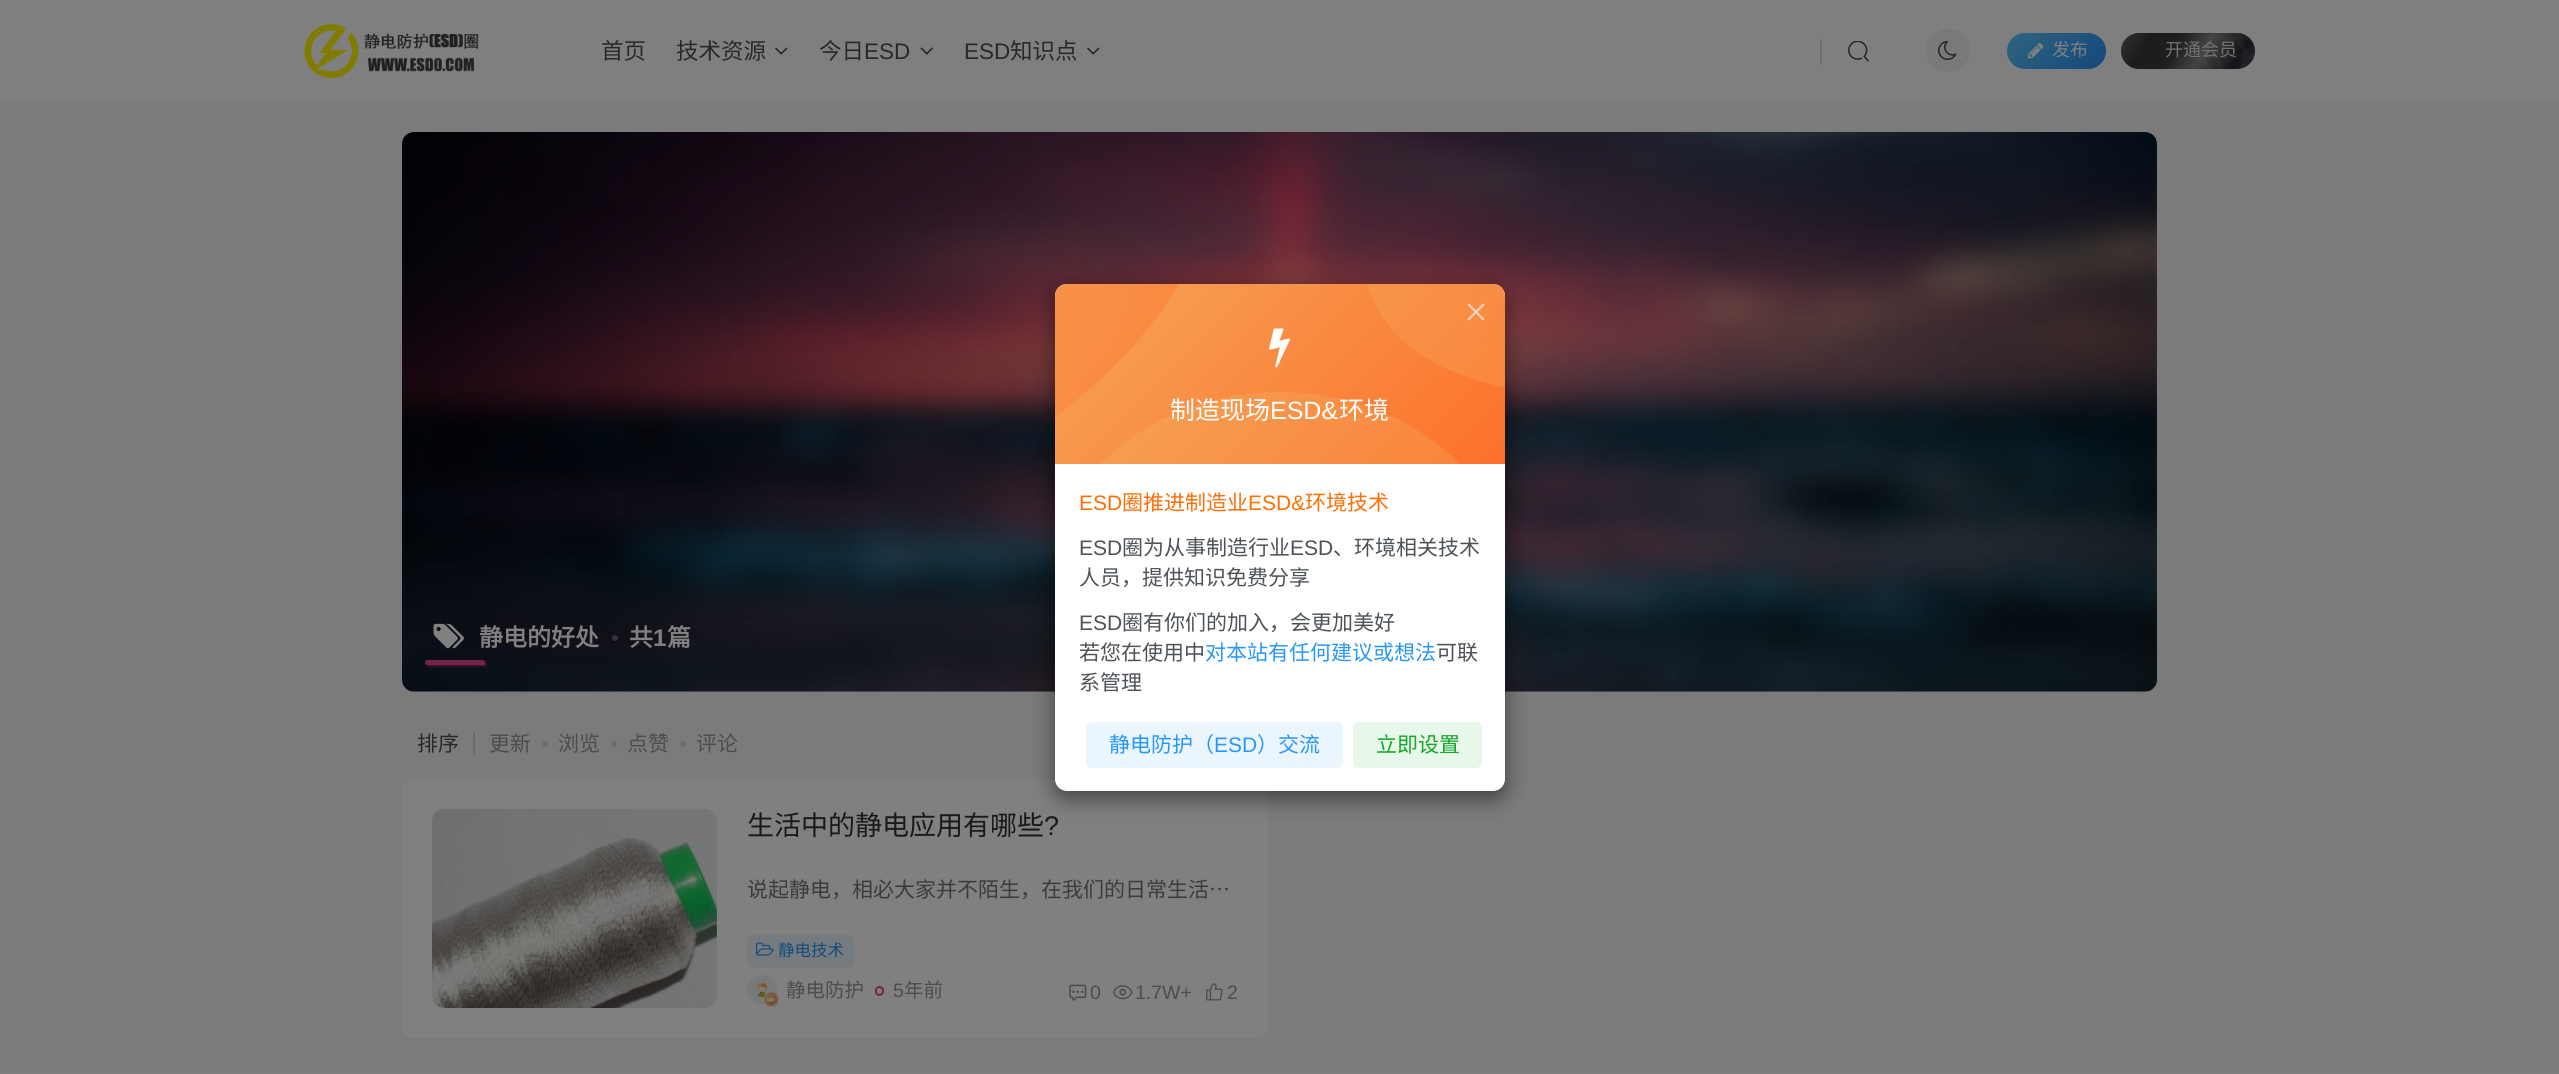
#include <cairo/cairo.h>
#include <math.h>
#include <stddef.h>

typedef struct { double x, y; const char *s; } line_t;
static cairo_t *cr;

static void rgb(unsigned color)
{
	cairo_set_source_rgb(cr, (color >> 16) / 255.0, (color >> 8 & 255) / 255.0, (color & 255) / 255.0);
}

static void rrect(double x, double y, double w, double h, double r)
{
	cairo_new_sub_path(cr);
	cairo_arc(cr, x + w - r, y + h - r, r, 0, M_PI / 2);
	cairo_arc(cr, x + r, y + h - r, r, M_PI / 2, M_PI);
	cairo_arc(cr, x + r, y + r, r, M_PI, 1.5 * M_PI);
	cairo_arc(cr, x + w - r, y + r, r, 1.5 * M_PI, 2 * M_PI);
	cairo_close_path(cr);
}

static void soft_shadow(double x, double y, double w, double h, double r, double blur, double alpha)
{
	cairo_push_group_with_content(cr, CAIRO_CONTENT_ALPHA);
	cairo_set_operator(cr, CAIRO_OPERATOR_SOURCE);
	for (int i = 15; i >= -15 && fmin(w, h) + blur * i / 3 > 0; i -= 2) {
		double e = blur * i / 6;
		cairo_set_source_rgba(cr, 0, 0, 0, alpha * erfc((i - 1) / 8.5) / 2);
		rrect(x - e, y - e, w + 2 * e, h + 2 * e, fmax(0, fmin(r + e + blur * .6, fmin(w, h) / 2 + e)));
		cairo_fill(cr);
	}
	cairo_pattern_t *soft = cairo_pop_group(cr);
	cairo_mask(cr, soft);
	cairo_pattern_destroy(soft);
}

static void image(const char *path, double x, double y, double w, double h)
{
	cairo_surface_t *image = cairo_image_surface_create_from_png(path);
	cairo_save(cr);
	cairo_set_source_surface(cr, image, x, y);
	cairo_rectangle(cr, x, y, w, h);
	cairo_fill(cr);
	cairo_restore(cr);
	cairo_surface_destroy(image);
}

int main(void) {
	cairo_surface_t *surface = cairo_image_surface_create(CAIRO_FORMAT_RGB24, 2559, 1074);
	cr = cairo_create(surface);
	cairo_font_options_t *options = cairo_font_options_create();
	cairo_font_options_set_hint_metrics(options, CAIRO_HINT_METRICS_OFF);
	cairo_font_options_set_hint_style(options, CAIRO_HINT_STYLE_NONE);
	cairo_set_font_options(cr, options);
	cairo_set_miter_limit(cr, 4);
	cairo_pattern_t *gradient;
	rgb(0x7b7b7c);
	cairo_paint(cr);
	rgb(0x7f7f7f);
	cairo_rectangle(cr, 0, 0, 2559, 102);
	cairo_fill(cr);
	image("img/1.png", 304, 24, 175, 54);
	image("img/2.png", 775, 47, 13, 8);
	image("img/3.png", 920, 47, 13, 8);
	image("img/2.png", 1087, 47, 13, 8);
	rgb(0x6d6e6f);
	cairo_rectangle(cr, 1820, 39, 2, 26);
	cairo_fill(cr);
	image("img/4.png", 1848, 41, 21, 21);
	rgb(0x797979);
	rrect(1926, 29, 44, 43, 21.5);
	cairo_fill(cr);
	image("img/5.png", 1938, 40, 19, 21);
	gradient = cairo_pattern_create_linear(2023, 17, 2090, 85);
	cairo_pattern_add_color_stop_rgba(gradient, 0.1, 0.176, 0.384, 0.494, 1);
	cairo_pattern_add_color_stop_rgba(gradient, 1, 0.075, 0.278, 0.486, 1);
	cairo_set_source(cr, gradient);
	cairo_pattern_destroy(gradient);
	rrect(2007, 33, 99, 36, 18);
	cairo_fill(cr);
	image("img/6.png", 2028, 43, 16, 16);
	gradient = cairo_pattern_create_linear(2246, 84, 2130, 18);
	cairo_pattern_add_color_stop_rgba(gradient, 0, 0.149, 0.153, 0.161, 1);
	cairo_pattern_add_color_stop_rgba(gradient, 0.15, 0.082, 0.082, 0.098, 1);
	cairo_pattern_add_color_stop_rgba(gradient, 0.4, 0.263, 0.263, 0.271, 1);
	cairo_pattern_add_color_stop_rgba(gradient, 0.6, 0.114, 0.114, 0.118, 1);
	cairo_pattern_add_color_stop_rgba(gradient, 0.8, 0.114, 0.11, 0.11, 1);
	cairo_pattern_add_color_stop_rgba(gradient, 1, 0.184, 0.188, 0.192, 1);
	cairo_set_source(cr, gradient);
	cairo_pattern_destroy(gradient);
	rrect(2121, 33, 134, 36, 18);
	cairo_fill(cr);
	rgb(0x808080);
	rrect(402, 132, 1755, 560, 12);
	cairo_fill(cr);
	image("img/10.png", 402, 132, 1755, 560);
	gradient = cairo_pattern_create_linear(1280, 692, 1280, 132);
	cairo_pattern_add_color_stop_rgba(gradient, 0.11, 0.059, 0.082, 0.098, 0.4);
	cairo_pattern_add_color_stop_rgba(gradient, 0.3, 0.059, 0.082, 0.098, 0);
	cairo_set_source(cr, gradient);
	cairo_pattern_destroy(gradient);
	rrect(402, 132, 1755, 560, 12);
	cairo_fill(cr);
	rgb(0x808080);
	rrect(402, 779, 866, 259, 12);
	cairo_fill(cr);
	rgb(0x000000);
	soft_shadow(1055, 291, 450, 507, 12, 11, 0.5);
	rgb(0xffffff);
	rrect(1055, 284, 450, 507, 12);
	cairo_fill(cr);
	gradient = cairo_pattern_create_linear(1145, 194, 1505, 554);
	cairo_pattern_add_color_stop_rgba(gradient, 0.1, 0.961, 0.624, 0.329, 1);
	cairo_pattern_add_color_stop_rgba(gradient, 1, 1, 0.412, 0.133, 1);
	cairo_set_source(cr, gradient);
	cairo_pattern_destroy(gradient);
	cairo_new_path(cr);
	cairo_move_to(cr, 1067, 284);
	cairo_line_to(cr, 1493, 284);
	cairo_curve_to(cr, 1499.5, 284, 1505, 289.5, 1505, 296);
	cairo_line_to(cr, 1505, 464);
	cairo_line_to(cr, 1055, 464);
	cairo_line_to(cr, 1055, 296);
	cairo_curve_to(cr, 1055, 289.5, 1060.5, 284, 1067, 284);
	cairo_close_path(cr);
	cairo_fill(cr);
	gradient = cairo_pattern_create_linear(1050, 379, 1510, 839);
	cairo_pattern_add_color_stop_rgba(gradient, 0.1, 0.961, 0.624, 0.329, 1);
	cairo_pattern_add_color_stop_rgba(gradient, 1, 1, 0.412, 0.133, 1);
	cairo_set_source(cr, gradient);
	cairo_pattern_destroy(gradient);
	cairo_new_path(cr);
	cairo_move_to(cr, 1280, 392);
	cairo_curve_to(cr, 1352, 392, 1416, 420, 1460, 464);
	cairo_line_to(cr, 1100, 464);
	cairo_curve_to(cr, 1144, 420, 1208, 392, 1280, 392);
	cairo_close_path(cr);
	cairo_fill(cr);
	gradient = cairo_pattern_create_linear(625, 235, 1266, 359);
	cairo_pattern_add_color_stop_rgba(gradient, 0.1, 0.961, 0.624, 0.329, 0.4);
	cairo_pattern_add_color_stop_rgba(gradient, 1, 1, 0.412, 0.133, 0.4);
	cairo_set_source(cr, gradient);
	cairo_pattern_destroy(gradient);
	cairo_new_path(cr);
	cairo_move_to(cr, 1067, 284);
	cairo_line_to(cr, 1179, 284);
	cairo_curve_to(cr, 1152, 330, 1110, 376, 1055, 417);
	cairo_line_to(cr, 1055, 296);
	cairo_curve_to(cr, 1055, 289, 1060, 284, 1067, 284);
	cairo_close_path(cr);
	cairo_fill(cr);
	gradient = cairo_pattern_create_linear(1385, -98, 2317, 356);
	cairo_pattern_add_color_stop_rgba(gradient, 0.1, 0.961, 0.624, 0.329, 0.6);
	cairo_pattern_add_color_stop_rgba(gradient, 1, 1, 0.412, 0.133, 0.6);
	cairo_set_source(cr, gradient);
	cairo_pattern_destroy(gradient);
	cairo_new_path(cr);
	cairo_move_to(cr, 1505, 388);
	cairo_curve_to(cr, 1448, 375, 1383, 346, 1368, 284);
	cairo_line_to(cr, 1493, 284);
	cairo_curve_to(cr, 1500, 284, 1505, 289, 1505, 296);
	cairo_close_path(cr);
	cairo_fill(cr);
	image("img/8.png", 1467, 303, 18, 18);
	image("img/9.png", 1269, 328, 21, 40);
	rgb(0xeaf5fe);
	rrect(1086, 722, 257, 46, 6);
	cairo_fill(cr);
	rgb(0xe7f8ea);
	rrect(1353, 722, 129, 46, 6);
	cairo_fill(cr);
	image("img/11.png", 433, 623, 31, 26);
	rgb(0x323237);
	cairo_arc(cr, 615, 638, 3, 0, 2 * M_PI);
	cairo_fill(cr);
	rgb(0x78224a);
	soft_shadow(428, 663, 57, 2, 1, 2, 1);
	rgb(0x78224a);
	rrect(425, 660, 60, 5, 2.5);
	cairo_fill(cr);
	rgb(0x6a6b6c);
	cairo_rectangle(cr, 473, 732, 2, 23);
	cairo_fill(cr);
	rgb(0x6d6d6e);
	cairo_arc(cr, 545, 744, 3, 0, 2 * M_PI);
	cairo_fill(cr);
	cairo_arc(cr, 614, 744, 3, 0, 2 * M_PI);
	cairo_fill(cr);
	cairo_arc(cr, 683, 744, 3, 0, 2 * M_PI);
	cairo_fill(cr);
	image("img/12.png", 432, 808, 285, 200);
	rgb(0x757b7f);
	rrect(747, 935, 107, 33, 6);
	cairo_fill(cr);
	image("img/13.png", 756, 942, 18, 14);
	image("img/14.png", 747, 975, 30, 30);
	image("img/15.png", 764, 992, 15, 15);
	rrect(876, 987, 7, 8, 3.5);
	rgb(0x78224a);
	cairo_stroke(cr);
	image("img/16.png", 1069, 984, 18, 17);
	image("img/17.png", 1113, 985, 20, 15);
	image("img/18.png", 1206, 983, 17, 18);
	rgb(0x808080);
	cairo_rectangle(cr, 0, 1073, 2559, 1);
	cairo_fill(cr);
	cairo_select_font_face(cr, "Noto Sans CJK SC", CAIRO_FONT_SLANT_NORMAL, CAIRO_FONT_WEIGHT_NORMAL);
	cairo_set_font_size(cr, 22.5);
	rgb(0x272a2c);
	{
		static const line_t items[] = {
			{601, 59, "首页"},
			{676, 59, "技术资源"},
			{819, 59, "今日"},
		};
		for (size_t i = 0; i < sizeof items / sizeof *items; i++) {
			cairo_move_to(cr, items[i].x, items[i].y);
			cairo_show_text(cr, items[i].s);
		}
	}
	cairo_select_font_face(cr, "Liberation Sans", CAIRO_FONT_SLANT_NORMAL, CAIRO_FONT_WEIGHT_NORMAL);
	cairo_move_to(cr, 864, 59);
	cairo_show_text(cr, "ESD");
	cairo_move_to(cr, 964, 59);
	cairo_show_text(cr, "ESD");
	cairo_select_font_face(cr, "Noto Sans CJK SC", CAIRO_FONT_SLANT_NORMAL, CAIRO_FONT_WEIGHT_NORMAL);
	cairo_move_to(cr, 1010, 59);
	cairo_show_text(cr, "知识点");
	cairo_set_font_size(cr, 18);
	rgb(0x808080);
	cairo_move_to(cr, 2052, 56);
	cairo_show_text(cr, "发布");
	rgb(0x767070);
	cairo_move_to(cr, 2165, 56);
	cairo_show_text(cr, "开通会员");
	image("img/7.png", 2196, 36, 59, 33);
	cairo_set_font_size(cr, 25);
	rgb(0xffffff);
	cairo_move_to(cr, 1170, 419);
	cairo_show_text(cr, "制造现场");
	cairo_select_font_face(cr, "Liberation Sans", CAIRO_FONT_SLANT_NORMAL, CAIRO_FONT_WEIGHT_NORMAL);
	cairo_move_to(cr, 1270, 419);
	cairo_show_text(cr, "ESD&");
	cairo_select_font_face(cr, "Noto Sans CJK SC", CAIRO_FONT_SLANT_NORMAL, CAIRO_FONT_WEIGHT_NORMAL);
	cairo_move_to(cr, 1339, 419);
	cairo_show_text(cr, "环境");
	cairo_select_font_face(cr, "Liberation Sans", CAIRO_FONT_SLANT_NORMAL, CAIRO_FONT_WEIGHT_NORMAL);
	cairo_set_font_size(cr, 21);
	rgb(0xff6f06);
	cairo_move_to(cr, 1079, 510);
	cairo_show_text(cr, "ESD");
	cairo_select_font_face(cr, "Noto Sans CJK SC", CAIRO_FONT_SLANT_NORMAL, CAIRO_FONT_WEIGHT_NORMAL);
	cairo_move_to(cr, 1122, 510);
	cairo_show_text(cr, "圈推进制造业");
	cairo_select_font_face(cr, "Liberation Sans", CAIRO_FONT_SLANT_NORMAL, CAIRO_FONT_WEIGHT_NORMAL);
	cairo_move_to(cr, 1248, 510);
	cairo_show_text(cr, "ESD&");
	cairo_select_font_face(cr, "Noto Sans CJK SC", CAIRO_FONT_SLANT_NORMAL, CAIRO_FONT_WEIGHT_NORMAL);
	cairo_move_to(cr, 1305, 510);
	cairo_show_text(cr, "环境技术");
	cairo_select_font_face(cr, "Liberation Sans", CAIRO_FONT_SLANT_NORMAL, CAIRO_FONT_WEIGHT_NORMAL);
	rgb(0x4e5358);
	cairo_move_to(cr, 1079, 555);
	cairo_show_text(cr, "ESD");
	cairo_select_font_face(cr, "Noto Sans CJK SC", CAIRO_FONT_SLANT_NORMAL, CAIRO_FONT_WEIGHT_NORMAL);
	cairo_move_to(cr, 1122, 555);
	cairo_show_text(cr, "圈为从事制造行业");
	cairo_select_font_face(cr, "Liberation Sans", CAIRO_FONT_SLANT_NORMAL, CAIRO_FONT_WEIGHT_NORMAL);
	cairo_move_to(cr, 1290, 555);
	cairo_show_text(cr, "ESD");
	cairo_select_font_face(cr, "Noto Sans CJK SC", CAIRO_FONT_SLANT_NORMAL, CAIRO_FONT_WEIGHT_NORMAL);
	cairo_move_to(cr, 1333, 555);
	cairo_show_text(cr, "、环境相关技术");
	cairo_move_to(cr, 1079, 585);
	cairo_show_text(cr, "人员，提供知识免费分享");
	cairo_select_font_face(cr, "Liberation Sans", CAIRO_FONT_SLANT_NORMAL, CAIRO_FONT_WEIGHT_NORMAL);
	cairo_move_to(cr, 1079, 630);
	cairo_show_text(cr, "ESD");
	cairo_select_font_face(cr, "Noto Sans CJK SC", CAIRO_FONT_SLANT_NORMAL, CAIRO_FONT_WEIGHT_NORMAL);
	cairo_move_to(cr, 1122, 630);
	cairo_show_text(cr, "圈有你们的加入，会更加美好");
	cairo_move_to(cr, 1079, 660);
	cairo_show_text(cr, "若您在使用中");
	rgb(0x2997f7);
	cairo_move_to(cr, 1205, 660);
	cairo_show_text(cr, "对本站有任何建议或想法");
	rgb(0x4e5358);
	cairo_move_to(cr, 1436, 660);
	cairo_show_text(cr, "可联");
	cairo_move_to(cr, 1079, 690);
	cairo_show_text(cr, "系管理");
	rgb(0x2997f7);
	cairo_move_to(cr, 1109, 752);
	cairo_show_text(cr, "静电防护（");
	cairo_select_font_face(cr, "Liberation Sans", CAIRO_FONT_SLANT_NORMAL, CAIRO_FONT_WEIGHT_NORMAL);
	cairo_move_to(cr, 1214, 752);
	cairo_show_text(cr, "ESD");
	cairo_select_font_face(cr, "Noto Sans CJK SC", CAIRO_FONT_SLANT_NORMAL, CAIRO_FONT_WEIGHT_NORMAL);
	cairo_move_to(cr, 1257, 752);
	cairo_show_text(cr, "）交流");
	rgb(0x18a52a);
	cairo_move_to(cr, 1376, 752);
	cairo_show_text(cr, "立即设置");
	cairo_select_font_face(cr, "Noto Sans CJK SC", CAIRO_FONT_SLANT_NORMAL, CAIRO_FONT_WEIGHT_BOLD);
	cairo_set_font_size(cr, 24);
	rgb(0x808080);
	cairo_move_to(cr, 479, 646);
	cairo_show_text(cr, "静电的好处");
	cairo_move_to(cr, 629, 646);
	cairo_show_text(cr, "共");
	cairo_select_font_face(cr, "Liberation Sans", CAIRO_FONT_SLANT_NORMAL, CAIRO_FONT_WEIGHT_BOLD);
	cairo_move_to(cr, 653, 646);
	cairo_show_text(cr, "1");
	cairo_select_font_face(cr, "Noto Sans CJK SC", CAIRO_FONT_SLANT_NORMAL, CAIRO_FONT_WEIGHT_BOLD);
	cairo_move_to(cr, 667, 646);
	cairo_show_text(cr, "篇");
	cairo_select_font_face(cr, "Noto Sans CJK SC", CAIRO_FONT_SLANT_NORMAL, CAIRO_FONT_WEIGHT_NORMAL);
	cairo_set_font_size(cr, 21);
	rgb(0x272a2c);
	cairo_move_to(cr, 417, 751);
	cairo_show_text(cr, "排序");
	rgb(0x4d4d4d);
	{
		static const line_t items[] = {
			{489, 751, "更新"},
			{558, 751, "浏览"},
			{627, 751, "点赞"},
			{696, 751, "评论"},
		};
		for (size_t i = 0; i < sizeof items / sizeof *items; i++) {
			cairo_move_to(cr, items[i].x, items[i].y);
			cairo_show_text(cr, items[i].s);
		}
	}
	cairo_set_font_size(cr, 27);
	rgb(0x1a1a1a);
	cairo_move_to(cr, 747, 835);
	cairo_show_text(cr, "生活中的静电应用有哪些");
	cairo_select_font_face(cr, "Liberation Sans", CAIRO_FONT_SLANT_NORMAL, CAIRO_FONT_WEIGHT_NORMAL);
	cairo_move_to(cr, 1044, 835);
	cairo_show_text(cr, "?");
	cairo_select_font_face(cr, "Noto Sans CJK SC", CAIRO_FONT_SLANT_NORMAL, CAIRO_FONT_WEIGHT_NORMAL);
	cairo_set_font_size(cr, 21);
	rgb(0x3c3c3c);
	cairo_move_to(cr, 747, 897);
	cairo_show_text(cr, "说起静电，相必大家并不陌生，在我们的日常生活…");
	cairo_set_font_size(cr, 16.5);
	rgb(0x154c7c);
	cairo_move_to(cr, 778, 956);
	cairo_show_text(cr, "静电技术");
	cairo_set_font_size(cr, 19.5);
	rgb(0x4d4d4d);
	cairo_move_to(cr, 786, 997);
	cairo_show_text(cr, "静电防护");
	cairo_select_font_face(cr, "Liberation Sans", CAIRO_FONT_SLANT_NORMAL, CAIRO_FONT_WEIGHT_NORMAL);
	cairo_move_to(cr, 893, 997);
	cairo_show_text(cr, "5");
	cairo_select_font_face(cr, "Noto Sans CJK SC", CAIRO_FONT_SLANT_NORMAL, CAIRO_FONT_WEIGHT_NORMAL);
	cairo_move_to(cr, 904, 997);
	cairo_show_text(cr, "年前");
	cairo_select_font_face(cr, "Liberation Sans", CAIRO_FONT_SLANT_NORMAL, CAIRO_FONT_WEIGHT_NORMAL);
	{
		static const line_t items[] = {
			{1090, 999, "0"},
			{1135, 999, "1.7W+"},
			{1227, 999, "2"},
		};
		for (size_t i = 0; i < sizeof items / sizeof *items; i++) {
			cairo_move_to(cr, items[i].x, items[i].y);
			cairo_show_text(cr, items[i].s);
		}
	}
	cairo_surface_write_to_png(surface, "page.png");
	cairo_font_options_destroy(options);
	cairo_destroy(cr);
	cairo_surface_destroy(surface);
	return 0;
}
